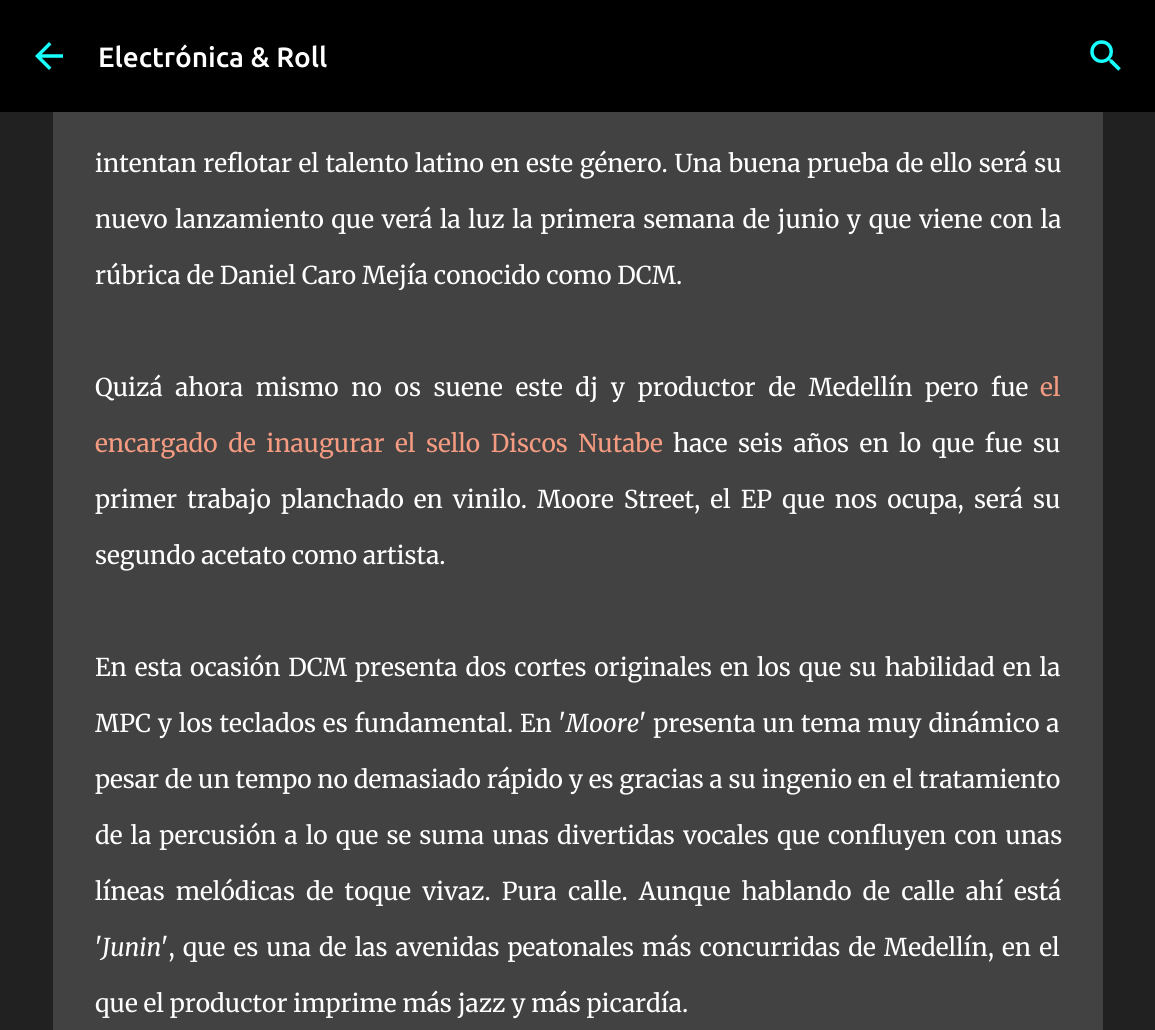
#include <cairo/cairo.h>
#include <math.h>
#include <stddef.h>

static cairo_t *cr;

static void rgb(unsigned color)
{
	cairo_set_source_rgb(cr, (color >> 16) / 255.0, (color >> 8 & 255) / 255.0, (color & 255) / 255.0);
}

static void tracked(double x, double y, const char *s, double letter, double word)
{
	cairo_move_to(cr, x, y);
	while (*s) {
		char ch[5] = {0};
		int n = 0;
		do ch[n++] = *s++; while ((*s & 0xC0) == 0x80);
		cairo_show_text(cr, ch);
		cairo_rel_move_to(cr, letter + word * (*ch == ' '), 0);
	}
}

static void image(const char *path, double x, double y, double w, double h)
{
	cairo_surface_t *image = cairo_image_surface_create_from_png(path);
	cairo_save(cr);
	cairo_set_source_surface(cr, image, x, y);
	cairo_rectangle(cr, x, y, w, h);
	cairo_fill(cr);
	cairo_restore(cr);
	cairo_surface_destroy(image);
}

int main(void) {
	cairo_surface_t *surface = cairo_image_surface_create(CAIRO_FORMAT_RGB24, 1155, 1030);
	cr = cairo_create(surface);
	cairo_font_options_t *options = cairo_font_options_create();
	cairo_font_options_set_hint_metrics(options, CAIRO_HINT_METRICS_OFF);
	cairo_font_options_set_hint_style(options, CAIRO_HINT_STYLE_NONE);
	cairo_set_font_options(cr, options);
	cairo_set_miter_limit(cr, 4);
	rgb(0x212121);
	cairo_paint(cr);
	rgb(0x000000);
	cairo_rectangle(cr, 0, 0, 1155, 112);
	cairo_fill(cr);
	image("img/1.png", 35, 42, 28, 28);
	image("img/2.png", 1090, 40, 31, 31);
	rgb(0x424242);
	cairo_rectangle(cr, 53, 112, 1050, 918);
	cairo_fill(cr);
	cairo_select_font_face(cr, "Ubuntu Medium", CAIRO_FONT_SLANT_NORMAL, CAIRO_FONT_WEIGHT_NORMAL);
	cairo_set_font_size(cr, 28);
	rgb(0xffffff);
	cairo_move_to(cr, 98, 67);
	cairo_show_text(cr, "Electrónica & Roll");
	cairo_select_font_face(cr, "Merriweather", CAIRO_FONT_SLANT_NORMAL, CAIRO_FONT_WEIGHT_NORMAL);
	cairo_set_font_size(cr, 24.5);
	tracked(95, 172, "intentan reflotar el talento latino en este género. Una buena prueba de ello será su", 0, 0.75);
	tracked(95, 228, "nuevo lanzamiento que verá la luz la primera semana de junio y que viene con la", 0, 1.75);
	cairo_move_to(cr, 95, 284);
	cairo_show_text(cr, "rúbrica de Daniel Caro Mejía conocido como DCM.");
	tracked(95, 396, "Quizá ahora mismo no os suene este dj y productor de Medellín pero fue", 0, 6.9);
	rgb(0xf59b81);
	cairo_move_to(cr, 1040, 396);
	cairo_show_text(cr, "el");
	tracked(95, 452, "encargado de inaugurar el sello Discos Nutabe", 0, 4.75);
	rgb(0xffffff);
	tracked(673, 452, "hace seis años en lo que fue su", 0, 4.75);
	tracked(95, 508, "primer trabajo planchado en vinilo. Moore Street, el EP que nos ocupa, será su", 0, 4.25);
	cairo_move_to(cr, 95, 564);
	cairo_show_text(cr, "segundo acetato como artista.");
	tracked(95, 676, "En esta ocasión DCM presenta dos cortes originales en los que su habilidad en la", 0, 2.1);
	tracked(95, 732, "MPC y los teclados es fundamental. En '", 0, 1);
	cairo_select_font_face(cr, "Merriweather", CAIRO_FONT_SLANT_ITALIC, CAIRO_FONT_WEIGHT_NORMAL);
	cairo_move_to(cr, 566, 732);
	cairo_show_text(cr, "Moore");
	cairo_select_font_face(cr, "Merriweather", CAIRO_FONT_SLANT_NORMAL, CAIRO_FONT_WEIGHT_NORMAL);
	tracked(639, 732, "' presenta un tema muy dinámico a", 0, 1);
	cairo_move_to(cr, 95, 788);
	cairo_show_text(cr, "pesar de un tempo no demasiado rápido y es gracias a su ingenio en el tratamiento");
	tracked(95, 844, "de la percusión a lo que se suma unas divertidas vocales que confluyen con unas", 0, 2.25);
	tracked(95, 900, "líneas melódicas de toque vivaz. Pura calle. Aunque hablando de calle ahí está", 0, 5.25);
	cairo_move_to(cr, 95, 956);
	cairo_show_text(cr, "'");
	cairo_select_font_face(cr, "Merriweather", CAIRO_FONT_SLANT_ITALIC, CAIRO_FONT_WEIGHT_NORMAL);
	cairo_move_to(cr, 102, 956);
	cairo_show_text(cr, "Junin");
	cairo_select_font_face(cr, "Merriweather", CAIRO_FONT_SLANT_NORMAL, CAIRO_FONT_WEIGHT_NORMAL);
	tracked(161, 956, "', que es una de las avenidas peatonales más concurridas de Medellín, en el", 0, 2.25);
	cairo_move_to(cr, 95, 1012);
	cairo_show_text(cr, "que el productor imprime más jazz y más picardía.");
	cairo_surface_write_to_png(surface, "page.png");
	cairo_font_options_destroy(options);
	cairo_destroy(cr);
	cairo_surface_destroy(surface);
	return 0;
}
